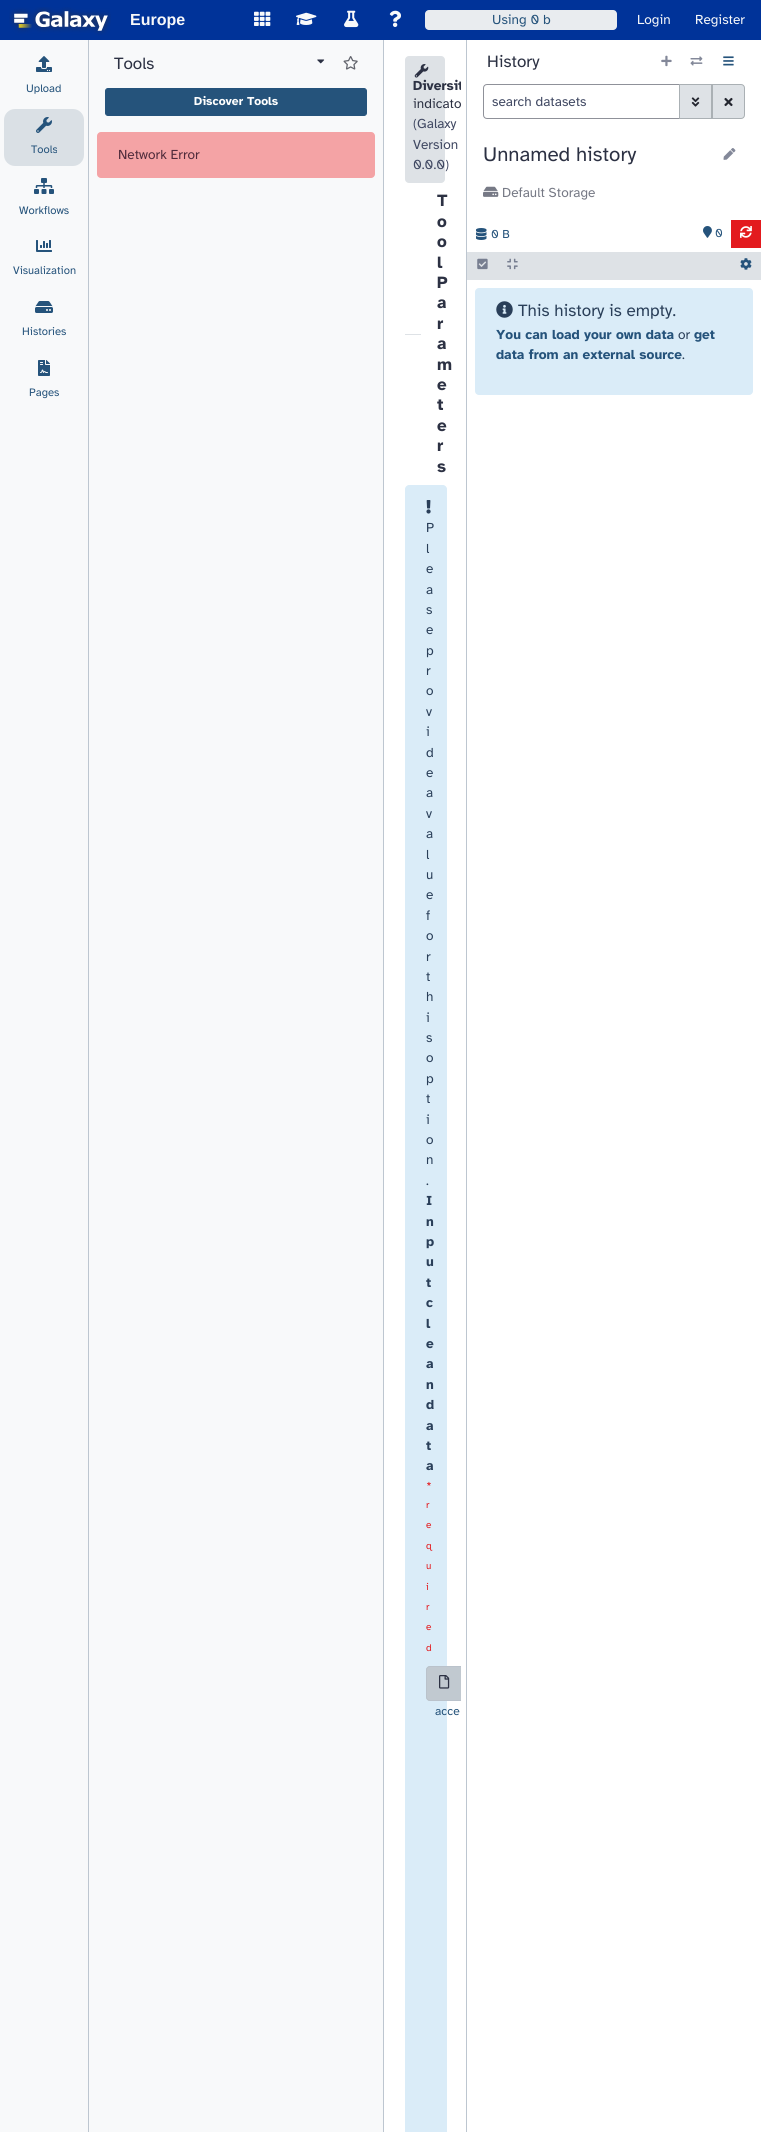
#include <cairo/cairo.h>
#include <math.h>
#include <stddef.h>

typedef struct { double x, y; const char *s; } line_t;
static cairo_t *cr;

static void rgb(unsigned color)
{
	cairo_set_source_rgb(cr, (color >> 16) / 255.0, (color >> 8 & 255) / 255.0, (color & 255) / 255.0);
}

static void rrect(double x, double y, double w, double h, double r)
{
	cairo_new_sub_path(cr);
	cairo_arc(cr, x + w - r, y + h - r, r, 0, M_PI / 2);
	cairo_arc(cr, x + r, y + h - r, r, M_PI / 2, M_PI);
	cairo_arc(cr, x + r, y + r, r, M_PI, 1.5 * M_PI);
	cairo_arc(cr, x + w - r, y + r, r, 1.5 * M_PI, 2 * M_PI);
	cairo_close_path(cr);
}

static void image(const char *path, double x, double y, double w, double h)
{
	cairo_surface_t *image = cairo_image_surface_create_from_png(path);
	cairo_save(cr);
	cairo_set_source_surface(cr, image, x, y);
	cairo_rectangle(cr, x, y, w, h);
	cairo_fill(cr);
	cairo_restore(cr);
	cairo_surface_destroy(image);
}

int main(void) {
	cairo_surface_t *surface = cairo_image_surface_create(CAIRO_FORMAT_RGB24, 761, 2132);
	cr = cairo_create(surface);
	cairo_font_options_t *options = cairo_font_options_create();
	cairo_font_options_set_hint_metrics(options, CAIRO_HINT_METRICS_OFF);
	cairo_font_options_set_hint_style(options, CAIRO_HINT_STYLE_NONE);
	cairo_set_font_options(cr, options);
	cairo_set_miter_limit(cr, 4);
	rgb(0xffffff);
	cairo_paint(cr);
	rgb(0x003399);
	cairo_rectangle(cr, 0, 0, 761, 40);
	cairo_fill(cr);
	image("img/1.png", 9, 7, 102, 28);
	image("img/2.png", 254, 11, 17, 15);
	image("img/3.png", 296, 12, 21, 13);
	image("img/4.png", 344, 10, 15, 18);
	image("img/5.png", 389, 10, 12, 17);
	rgb(0xe9ecef);
	rrect(425, 10, 192, 20, 4);
	cairo_fill(cr);
	rgb(0xf8f9fa);
	cairo_rectangle(cr, 0, 40, 88, 2092);
	cairo_fill(cr);
	rgb(0xbdc6d0);
	cairo_rectangle(cr, 88, 40, 1, 2092);
	cairo_fill(cr);
	image("img/6.png", 36, 56, 16, 16);
	rgb(0xdae0e5);
	rrect(4, 109, 80, 57, 11);
	cairo_fill(cr);
	image("img/7.png", 36, 117, 16, 16);
	image("img/8.png", 34, 178, 20, 16);
	image("img/9.png", 36, 240, 16, 12);
	image("img/10.png", 35, 301, 18, 12);
	image("img/11.png", 38, 360, 12, 16);
	rgb(0xf8f9fa);
	cairo_rectangle(cr, 89, 40, 294, 2092);
	cairo_fill(cr);
	image("img/12.png", 317, 59, 8, 5);
	image("img/13.png", 343, 56, 15, 14);
	rgb(0x25537b);
	rrect(105.5, 88.5, 261, 27, 2.5);
	cairo_fill_preserve(cr);
	cairo_set_line_width(cr, 1);
	cairo_stroke(cr);
	rgb(0xf4a3a5);
	rrect(97, 132, 278, 46, 4);
	cairo_fill(cr);
	rgb(0xbdc6d0);
	cairo_rectangle(cr, 383, 40, 1, 2092);
	cairo_fill(cr);
	rgb(0xdee2e6);
	rrect(405, 56, 40, 127, 4);
	cairo_fill(cr);
	image("img/14.png", 414, 64, 15, 14);
	cairo_rectangle(cr, 405, 334, 16, 1);
	cairo_fill(cr);
	rgb(0xdaecf8);
	cairo_new_path(cr);
	cairo_move_to(cr, 409, 485);
	cairo_line_to(cr, 443, 485);
	cairo_curve_to(cr, 445, 485, 447, 487, 447, 489);
	cairo_line_to(cr, 447, 2132);
	cairo_line_to(cr, 405, 2132);
	cairo_line_to(cr, 405, 489);
	cairo_curve_to(cr, 405, 487, 407, 485, 409, 485);
	cairo_close_path(cr);
	cairo_fill(cr);
	image("img/15.png", 426, 500, 5, 14);
	rgb(0xc1c9d0);
	cairo_new_path(cr);
	cairo_move_to(cr, 430, 1666);
	cairo_line_to(cr, 461, 1666);
	cairo_line_to(cr, 461, 1701);
	cairo_line_to(cr, 430, 1701);
	cairo_curve_to(cr, 428, 1701, 426, 1699, 426, 1697);
	cairo_line_to(cr, 426, 1670);
	cairo_curve_to(cr, 426, 1668, 428, 1666, 430, 1666);
	cairo_close_path(cr);
	cairo_fill(cr);
	cairo_save(cr);
	cairo_rectangle(cr, 389, 40, 72, 2092);
	cairo_clip(cr);
	cairo_new_path(cr);
	cairo_move_to(cr, 430, 1666.5);
	cairo_line_to(cr, 461.5, 1666.5);
	cairo_line_to(cr, 461.5, 1700.5);
	cairo_line_to(cr, 430, 1700.5);
	cairo_curve_to(cr, 428, 1700.5, 426.5, 1699, 426.5, 1697);
	cairo_line_to(cr, 426.5, 1670);
	cairo_curve_to(cr, 426.5, 1668, 428, 1666.5, 430, 1666.5);
	cairo_close_path(cr);
	rgb(0xbac2cb);
	cairo_stroke(cr);
	cairo_restore(cr);
	image("img/16.png", 439, 1675, 11, 14);
	rgb(0xbdc6d0);
	cairo_rectangle(cr, 466, 40, 1, 2092);
	cairo_fill(cr);
	image("img/17.png", 661, 55, 11, 12);
	image("img/18.png", 690, 56, 13, 10);
	image("img/19.png", 723, 56, 11, 10);
	cairo_new_path(cr);
	cairo_move_to(cr, 487, 84.5);
	cairo_line_to(cr, 679.5, 84.5);
	cairo_line_to(cr, 679.5, 118.5);
	cairo_line_to(cr, 487, 118.5);
	cairo_curve_to(cr, 485, 118.5, 483.5, 117, 483.5, 115);
	cairo_line_to(cr, 483.5, 88);
	cairo_curve_to(cr, 483.5, 86, 485, 84.5, 487, 84.5);
	cairo_close_path(cr);
	rgb(0x8f9199);
	cairo_stroke(cr);
	rgb(0xdee2e6);
	cairo_rectangle(cr, 679.5, 84.5, 32, 34);
	cairo_fill_preserve(cr);
	rgb(0xaab0b4);
	cairo_stroke(cr);
	image("img/20.png", 691, 97, 9, 10);
	rgb(0xdee2e6);
	cairo_new_path(cr);
	cairo_move_to(cr, 712.5, 84.5);
	cairo_line_to(cr, 741, 84.5);
	cairo_curve_to(cr, 743, 84.5, 744.5, 86, 744.5, 88);
	cairo_line_to(cr, 744.5, 115);
	cairo_curve_to(cr, 744.5, 117, 743, 118.5, 741, 118.5);
	cairo_line_to(cr, 712.5, 118.5);
	cairo_close_path(cr);
	cairo_fill_preserve(cr);
	rgb(0xaab0b4);
	cairo_stroke(cr);
	image("img/21.png", 724, 97, 9, 10);
	image("img/22.png", 723, 148, 13, 12);
	image("img/23.png", 483, 186, 16, 11);
	image("img/24.png", 476, 228, 11, 12);
	image("img/25.png", 703, 226, 9, 12);
	rgb(0xe31a1e);
	cairo_rectangle(cr, 731, 220, 30, 28);
	cairo_fill(cr);
	image("img/26.png", 740, 226, 12, 12);
	rgb(0xdee2e6);
	cairo_rectangle(cr, 467, 252, 294, 28);
	cairo_fill(cr);
	image("img/27.png", 477, 258, 11, 12);
	image("img/28.png", 507, 258, 11, 12);
	image("img/29.png", 740, 258, 12, 12);
	rgb(0xdaecf8);
	rrect(475, 288, 278, 107, 4);
	cairo_fill(cr);
	image("img/30.png", 496, 301, 17, 17);
	cairo_select_font_face(cr, "Liberation Sans", CAIRO_FONT_SLANT_NORMAL, CAIRO_FONT_WEIGHT_BOLD);
	cairo_set_font_size(cr, 16);
	rgb(0xf8f9fa);
	cairo_move_to(cr, 130, 25);
	cairo_show_text(cr, "Europe");
	cairo_select_font_face(cr, "Atkinson Hyperlegible", CAIRO_FONT_SLANT_NORMAL, CAIRO_FONT_WEIGHT_NORMAL);
	cairo_set_font_size(cr, 13.6);
	rgb(0x25537b);
	cairo_move_to(cr, 492, 24);
	cairo_show_text(cr, "Using 0 b");
	rgb(0xf8f9fa);
	cairo_move_to(cr, 637, 24);
	cairo_show_text(cr, "Login");
	cairo_move_to(cr, 695, 24);
	cairo_show_text(cr, "Register");
	cairo_set_font_size(cr, 11.25);
	rgb(0x25537b);
	{
		static const line_t items[] = {
			{26, 92, "Upload"},
			{31, 153, "Tools"},
			{19, 214, "Workflows"},
			{13, 274, "Visualization"},
			{22, 335, "Histories"},
			{29, 396, "Pages"},
		};
		for (size_t i = 0; i < sizeof items / sizeof *items; i++) {
			cairo_move_to(cr, items[i].x, items[i].y);
			cairo_show_text(cr, items[i].s);
		}
	}
	cairo_set_font_size(cr, 17);
	rgb(0x2c3143);
	cairo_move_to(cr, 114, 69);
	cairo_show_text(cr, "Tools");
	cairo_select_font_face(cr, "Atkinson Hyperlegible", CAIRO_FONT_SLANT_NORMAL, CAIRO_FONT_WEIGHT_BOLD);
	cairo_set_font_size(cr, 12);
	rgb(0xffffff);
	cairo_move_to(cr, 194, 105);
	cairo_show_text(cr, "Discover Tools");
	cairo_select_font_face(cr, "Atkinson Hyperlegible", CAIRO_FONT_SLANT_NORMAL, CAIRO_FONT_WEIGHT_NORMAL);
	cairo_set_font_size(cr, 13.6);
	rgb(0x512c3c);
	cairo_move_to(cr, 118, 159);
	cairo_show_text(cr, "Network Error");
	cairo_save(cr);
	cairo_rectangle(cr, 389, 40, 72, 2092);
	cairo_clip(cr);
	cairo_select_font_face(cr, "Atkinson Hyperlegible", CAIRO_FONT_SLANT_NORMAL, CAIRO_FONT_WEIGHT_BOLD);
	rgb(0x2c3143);
	cairo_move_to(cr, 413, 90);
	cairo_show_text(cr, "Diversit");
	cairo_restore(cr);
	rgb(0x2c3143);
	cairo_move_to(cr, 413, 108);
	cairo_show_text(cr, "indicato");
	rgb(0x404862);
	{
		static const line_t items[] = {
			{413, 128, "(Galaxy"},
			{413, 149, "Version"},
			{413, 169, "0.0.0)"},
		};
		for (size_t i = 0; i < sizeof items / sizeof *items; i++) {
			cairo_move_to(cr, items[i].x, items[i].y);
			cairo_show_text(cr, items[i].s);
		}
	}
	cairo_select_font_face(cr, "Atkinson Hyperlegible", CAIRO_FONT_SLANT_NORMAL, CAIRO_FONT_WEIGHT_BOLD);
	cairo_set_font_size(cr, 17);
	rgb(0x2c3143);
	{
		static const line_t items[] = {
			{437, 206, "T"},
			{437, 227, "o"},
			{437, 247, "o"},
			{437, 268, "l"},
			{437, 288, "P"},
			{437, 308, "a"},
			{437, 329, "r"},
			{437, 349, "a"},
			{437, 370, "m"},
			{437, 390, "e"},
			{437, 410, "t"},
			{437, 431, "e"},
			{437, 451, "r"},
			{437, 472, "s"},
		};
		for (size_t i = 0; i < sizeof items / sizeof *items; i++) {
			cairo_move_to(cr, items[i].x, items[i].y);
			cairo_show_text(cr, items[i].s);
		}
	}
	cairo_select_font_face(cr, "Atkinson Hyperlegible", CAIRO_FONT_SLANT_NORMAL, CAIRO_FONT_WEIGHT_NORMAL);
	cairo_set_font_size(cr, 13.6);
	rgb(0x2a3f59);
	{
		static const line_t items[] = {
			{426, 532, "P"},
			{426, 553, "l"},
			{426, 573, "e"},
			{426, 594, "a"},
			{426, 614, "s"},
			{426, 634, "e"},
			{426, 655, "p"},
			{426, 675, "r"},
			{426, 695, "o"},
			{426, 716, "v"},
			{426, 736, "i"},
			{426, 757, "d"},
			{426, 777, "e"},
			{426, 797, "a"},
			{426, 818, "v"},
			{426, 838, "a"},
			{426, 859, "l"},
			{426, 879, "u"},
			{426, 899, "e"},
			{426, 920, "f"},
			{426, 940, "o"},
			{426, 961, "r"},
			{426, 981, "t"},
			{426, 1001, "h"},
			{426, 1022, "i"},
			{426, 1042, "s"},
			{426, 1062, "o"},
			{426, 1083, "p"},
			{426, 1103, "t"},
			{426, 1124, "i"},
			{426, 1144, "o"},
			{426, 1164, "n"},
			{426, 1185, "."},
		};
		for (size_t i = 0; i < sizeof items / sizeof *items; i++) {
			cairo_move_to(cr, items[i].x, items[i].y);
			cairo_show_text(cr, items[i].s);
		}
	}
	cairo_select_font_face(cr, "Atkinson Hyperlegible", CAIRO_FONT_SLANT_NORMAL, CAIRO_FONT_WEIGHT_BOLD);
	{
		static const line_t items[] = {
			{426, 1205, "I"},
			{426, 1226, "n"},
			{426, 1246, "p"},
			{426, 1266, "u"},
			{426, 1287, "t"},
			{426, 1307, "c"},
			{426, 1328, "l"},
			{426, 1348, "e"},
			{426, 1368, "a"},
			{426, 1389, "n"},
			{426, 1409, "d"},
			{426, 1430, "a"},
			{426, 1450, "t"},
			{426, 1470, "a"},
		};
		for (size_t i = 0; i < sizeof items / sizeof *items; i++) {
			cairo_move_to(cr, items[i].x, items[i].y);
			cairo_show_text(cr, items[i].s);
		}
	}
	cairo_select_font_face(cr, "Atkinson Hyperlegible", CAIRO_FONT_SLANT_NORMAL, CAIRO_FONT_WEIGHT_NORMAL);
	rgb(0xe31a1e);
	cairo_move_to(cr, 426, 1491);
	cairo_show_text(cr, "*");
	cairo_set_font_size(cr, 10);
	{
		static const line_t items[] = {
			{426, 1508, "r"},
			{426, 1528, "e"},
			{426, 1549, "q"},
			{426, 1569, "u"},
			{426, 1590, "i"},
			{426, 1610, "r"},
			{426, 1630, "e"},
			{426, 1651, "d"},
		};
		for (size_t i = 0; i < sizeof items / sizeof *items; i++) {
			cairo_move_to(cr, items[i].x, items[i].y);
			cairo_show_text(cr, items[i].s);
		}
	}
	cairo_set_font_size(cr, 12);
	rgb(0x25537b);
	cairo_move_to(cr, 435, 1715);
	cairo_show_text(cr, "acce");
	cairo_set_font_size(cr, 17);
	rgb(0x2c3143);
	cairo_move_to(cr, 487, 67);
	cairo_show_text(cr, "History");
	cairo_set_font_size(cr, 13.6);
	rgb(0x404862);
	cairo_move_to(cr, 492, 106);
	cairo_show_text(cr, "search datasets");
	cairo_set_font_size(cr, 20.5);
	rgb(0x2c3143);
	cairo_move_to(cr, 483, 161);
	cairo_show_text(cr, "Unnamed history");
	cairo_set_font_size(cr, 13.6);
	rgb(0x767985);
	cairo_move_to(cr, 502, 197);
	cairo_show_text(cr, "Default Storage");
	cairo_set_font_size(cr, 12);
	rgb(0x25537b);
	cairo_move_to(cr, 491, 238);
	cairo_show_text(cr, "0 B");
	cairo_move_to(cr, 715, 237);
	cairo_show_text(cr, "0");
	cairo_set_font_size(cr, 17);
	rgb(0x2a3f59);
	cairo_move_to(cr, 518, 316);
	cairo_show_text(cr, "This history is empty.");
	cairo_select_font_face(cr, "Atkinson Hyperlegible", CAIRO_FONT_SLANT_NORMAL, CAIRO_FONT_WEIGHT_BOLD);
	cairo_set_font_size(cr, 13.6);
	rgb(0x25537b);
	cairo_move_to(cr, 496, 339);
	cairo_show_text(cr, "You can load your own data");
	cairo_select_font_face(cr, "Atkinson Hyperlegible", CAIRO_FONT_SLANT_NORMAL, CAIRO_FONT_WEIGHT_NORMAL);
	rgb(0x2a3f59);
	cairo_move_to(cr, 678, 339);
	cairo_show_text(cr, "or");
	cairo_select_font_face(cr, "Atkinson Hyperlegible", CAIRO_FONT_SLANT_NORMAL, CAIRO_FONT_WEIGHT_BOLD);
	rgb(0x25537b);
	cairo_move_to(cr, 694, 339);
	cairo_show_text(cr, "get");
	cairo_move_to(cr, 496, 359);
	cairo_show_text(cr, "data from an external source");
	cairo_select_font_face(cr, "Atkinson Hyperlegible", CAIRO_FONT_SLANT_NORMAL, CAIRO_FONT_WEIGHT_NORMAL);
	rgb(0x2a3f59);
	cairo_move_to(cr, 682, 359);
	cairo_show_text(cr, ".");
	cairo_surface_write_to_png(surface, "page.png");
	cairo_font_options_destroy(options);
	cairo_destroy(cr);
	cairo_surface_destroy(surface);
	return 0;
}
